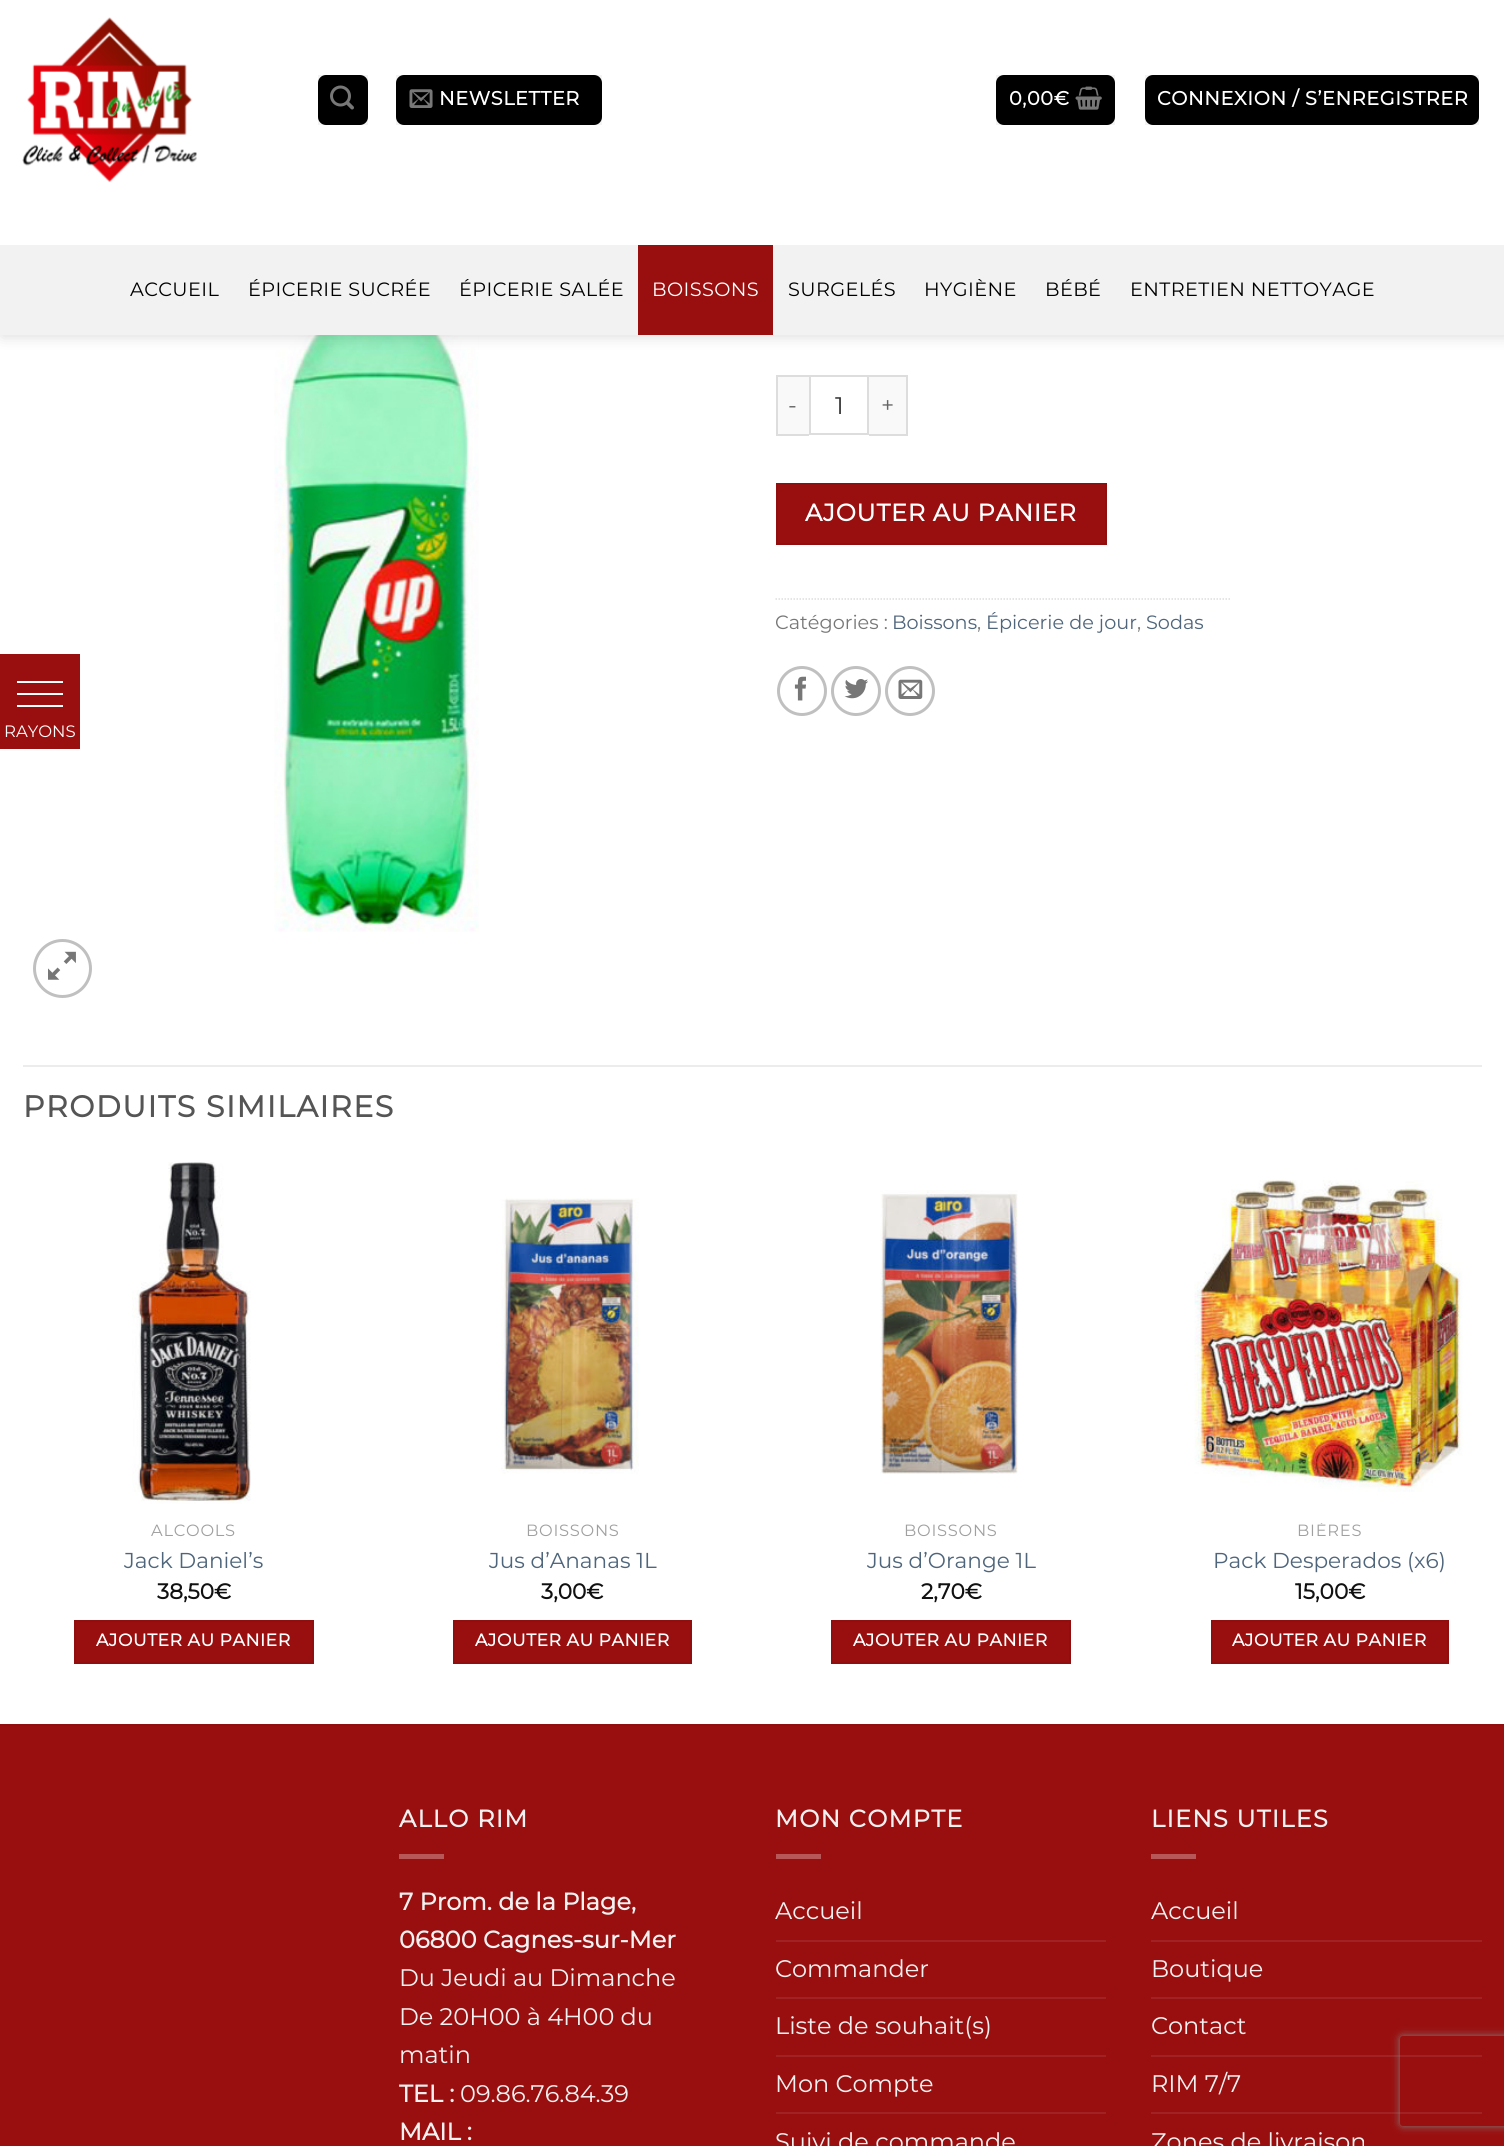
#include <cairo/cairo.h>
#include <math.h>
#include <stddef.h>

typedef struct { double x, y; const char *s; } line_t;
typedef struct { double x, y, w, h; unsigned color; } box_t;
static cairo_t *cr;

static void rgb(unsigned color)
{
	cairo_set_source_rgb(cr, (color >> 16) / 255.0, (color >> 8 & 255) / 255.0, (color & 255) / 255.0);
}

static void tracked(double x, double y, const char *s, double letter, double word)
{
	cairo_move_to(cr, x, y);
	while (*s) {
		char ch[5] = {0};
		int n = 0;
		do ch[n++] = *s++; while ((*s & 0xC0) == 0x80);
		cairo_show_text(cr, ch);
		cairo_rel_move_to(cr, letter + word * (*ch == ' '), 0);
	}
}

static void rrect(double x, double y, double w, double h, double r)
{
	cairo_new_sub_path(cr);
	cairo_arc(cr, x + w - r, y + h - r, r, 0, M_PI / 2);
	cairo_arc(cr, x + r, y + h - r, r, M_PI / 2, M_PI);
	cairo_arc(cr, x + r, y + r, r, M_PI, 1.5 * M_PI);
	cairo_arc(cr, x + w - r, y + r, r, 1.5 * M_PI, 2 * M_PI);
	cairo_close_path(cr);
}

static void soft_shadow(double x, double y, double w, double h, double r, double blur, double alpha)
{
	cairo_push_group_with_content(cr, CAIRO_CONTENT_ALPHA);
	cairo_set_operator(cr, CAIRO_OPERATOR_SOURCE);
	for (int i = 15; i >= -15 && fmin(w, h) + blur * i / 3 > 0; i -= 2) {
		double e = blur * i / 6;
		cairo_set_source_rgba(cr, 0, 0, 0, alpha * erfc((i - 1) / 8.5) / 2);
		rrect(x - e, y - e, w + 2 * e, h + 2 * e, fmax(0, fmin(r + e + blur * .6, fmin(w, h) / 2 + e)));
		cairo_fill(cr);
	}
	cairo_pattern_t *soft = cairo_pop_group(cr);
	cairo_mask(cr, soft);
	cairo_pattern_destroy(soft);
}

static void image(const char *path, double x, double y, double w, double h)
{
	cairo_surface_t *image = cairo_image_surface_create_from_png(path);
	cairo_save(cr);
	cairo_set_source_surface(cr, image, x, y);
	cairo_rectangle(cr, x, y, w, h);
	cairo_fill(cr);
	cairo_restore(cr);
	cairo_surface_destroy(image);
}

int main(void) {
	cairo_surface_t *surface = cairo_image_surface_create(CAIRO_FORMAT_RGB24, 1504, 2146);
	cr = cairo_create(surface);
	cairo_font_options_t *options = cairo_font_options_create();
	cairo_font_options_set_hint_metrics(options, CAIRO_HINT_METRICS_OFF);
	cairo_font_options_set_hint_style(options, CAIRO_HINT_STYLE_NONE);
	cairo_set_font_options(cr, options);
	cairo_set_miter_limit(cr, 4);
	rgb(0xffffff);
	cairo_paint(cr);
	image("img/5.png", 274, 335, 205, 597);
	rgb(0x000000);
	soft_shadow(2, 2, 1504, 334, 0, 7.5, 0.15);
	rgb(0xffffff);
	cairo_rectangle(cr, 0, 0, 1504, 245);
	cairo_fill(cr);
	image("img/1.png", 22, 17, 175, 165);
	rgb(0x000000);
	rrect(318, 75, 50, 50, 8);
	cairo_fill(cr);
	cairo_rectangle(cr, 319, 76, 48, 48);
	cairo_set_source_rgba(cr, 0, 0, 0, 0.05);
	cairo_stroke(cr);
	image("img/2.png", 330, 85, 24, 25);
	rgb(0x000000);
	rrect(396, 75, 206, 50, 8);
	cairo_fill(cr);
	cairo_rectangle(cr, 397, 76, 204, 48);
	cairo_set_source_rgba(cr, 0, 0, 0, 0.05);
	cairo_stroke(cr);
	image("img/3.png", 409, 89, 24, 19);
	rgb(0x000000);
	rrect(996, 75, 119, 50, 8);
	cairo_fill(cr);
	cairo_rectangle(cr, 997, 76, 117, 48);
	cairo_set_source_rgba(cr, 0, 0, 0, 0.05);
	cairo_stroke(cr);
	image("img/4.png", 1075, 86, 27, 24);
	rgb(0x000000);
	rrect(1145, 75, 334, 50, 8);
	cairo_fill(cr);
	cairo_rectangle(cr, 1146, 76, 332, 48);
	cairo_set_source_rgba(cr, 0, 0, 0, 0.05);
	cairo_stroke(cr);
	rgb(0xf2f2f2);
	cairo_rectangle(cr, 0, 245, 1504, 90);
	cairo_fill(cr);
	rgb(0x990f0f);
	cairo_rectangle(cr, 638, 245, 135, 90);
	cairo_fill(cr);
	cairo_arc(cr, 62.5, 968.5, 28, 0, 2 * M_PI);
	rgb(0xc0c0c0);
	cairo_set_line_width(cr, 3);
	cairo_stroke(cr);
	image("img/6.png", 48, 951, 28, 29);
	{
		static const box_t items[] = {
			{778, 377, 31, 57, 0xf9f9f9},
			{776, 375, 33, 2, 0xdddddd},
			{776, 434, 33, 2, 0xdddddd},
			{776, 375, 2, 60, 0xdddddd},
		};
		for (size_t i = 0; i < sizeof items / sizeof *items; i++) {
			rgb(items[i].color);
			cairo_rectangle(cr, items[i].x, items[i].y, items[i].w, items[i].h);
			cairo_fill(cr);
		}
	}
	cairo_rectangle(cr, 810, 376, 58, 58);
	cairo_set_line_width(cr, 2);
	cairo_stroke(cr);
	{
		static const box_t items[] = {
			{869, 377, 37, 57, 0xf9f9f9},
			{869, 375, 39, 2, 0xdddddd},
			{906, 375, 2, 60, 0xdddddd},
			{869, 434, 39, 2, 0xdddddd},
		};
		for (size_t i = 0; i < sizeof items / sizeof *items; i++) {
			rgb(items[i].color);
			cairo_rectangle(cr, items[i].x, items[i].y, items[i].w, items[i].h);
			cairo_fill(cr);
		}
	}
	rgb(0x990f0f);
	cairo_rectangle(cr, 777, 484, 329, 60);
	cairo_fill_preserve(cr);
	rgb(0x910e0e);
	cairo_stroke(cr);
	cairo_new_path(cr);
	cairo_move_to(cr, 775.5, 599);
	cairo_line_to(cr, 1231.5, 599);
	rgb(0xdddddd);
	cairo_set_line_width(cr, 1.5);
	cairo_set_dash(cr, (double[]){1.5, 1.5}, 2, 0);
	cairo_stroke(cr);
	cairo_arc(cr, 802, 691, 23.5, 0, 2 * M_PI);
	rgb(0xc0c0c0);
	cairo_set_line_width(cr, 3);
	cairo_set_dash(cr, NULL, 0, 0);
	cairo_stroke(cr);
	image("img/7.png", 794, 676, 12, 25);
	cairo_arc(cr, 856, 691, 23.5, 0, 2 * M_PI);
	cairo_stroke(cr);
	image("img/8.png", 844, 679, 24, 20);
	cairo_arc(cr, 910, 691, 23.5, 0, 2 * M_PI);
	cairo_stroke(cr);
	image("img/9.png", 898, 679, 25, 20);
	rgb(0xececec);
	cairo_rectangle(cr, 23, 1065, 1459, 2);
	cairo_fill(cr);
	image("img/10.png", 132, 1162, 119, 342);
	rgb(0x990f0f);
	cairo_rectangle(cr, 75, 1621, 238, 42);
	cairo_fill_preserve(cr);
	rgb(0x910e0e);
	cairo_set_line_width(cr, 2);
	cairo_stroke(cr);
	image("img/11.png", 501, 1198, 138, 276);
	rgb(0x990f0f);
	cairo_rectangle(cr, 454, 1621, 237, 42);
	cairo_fill_preserve(cr);
	rgb(0x910e0e);
	cairo_stroke(cr);
	image("img/12.png", 880, 1190, 138, 284);
	rgb(0x990f0f);
	cairo_rectangle(cr, 832, 1621, 238, 42);
	cairo_fill_preserve(cr);
	rgb(0x910e0e);
	cairo_stroke(cr);
	image("img/13.png", 1194, 1180, 269, 312);
	rgb(0x990f0f);
	cairo_rectangle(cr, 1212, 1621, 236, 42);
	cairo_fill_preserve(cr);
	rgb(0x910e0e);
	cairo_stroke(cr);
	{
		static const box_t items[] = {
			{0, 1726, 1504, 420, 0x990f0f},
			{0, 1724, 1504, 2, 0x910e0e},
			{399, 1854, 45, 5, 0xb85757},
			{776, 1854, 45, 5, 0xb85757},
			{776, 1940, 330, 2, 0xa12222},
			{776, 1997, 330, 2, 0xa12222},
			{776, 2055, 330, 2, 0xa12222},
			{776, 2112, 330, 2, 0xa12222},
			{1151, 1854, 45, 5, 0xb85757},
			{1151, 1940, 331, 2, 0xa12222},
			{1151, 1997, 331, 2, 0xa12222},
			{1151, 2055, 331, 2, 0xa12222},
			{1151, 2112, 331, 2, 0xa12222},
			{0, 654, 80, 95, 0x990f0f},
			{17, 693, 46, 2, 0xffffff},
			{17, 681, 46, 2, 0xffffff},
			{17, 705, 46, 2, 0xffffff},
		};
		for (size_t i = 0; i < sizeof items / sizeof *items; i++) {
			rgb(items[i].color);
			cairo_rectangle(cr, items[i].x, items[i].y, items[i].w, items[i].h);
			cairo_fill(cr);
		}
	}
	cairo_save(cr);
	cairo_set_fill_rule(cr, CAIRO_FILL_RULE_EVEN_ODD);
	cairo_new_path(cr);
	cairo_move_to(cr, 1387, 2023);
	cairo_line_to(cr, 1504, 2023);
	cairo_line_to(cr, 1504, 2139);
	cairo_line_to(cr, 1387, 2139);
	cairo_close_path(cr);
	cairo_move_to(cr, 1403, 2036);
	cairo_line_to(cr, 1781, 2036);
	cairo_curve_to(cr, 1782.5, 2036, 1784, 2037.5, 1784, 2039);
	cairo_line_to(cr, 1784, 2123);
	cairo_curve_to(cr, 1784, 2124.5, 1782.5, 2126, 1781, 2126);
	cairo_line_to(cr, 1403, 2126);
	cairo_curve_to(cr, 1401.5, 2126, 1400, 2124.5, 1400, 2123);
	cairo_line_to(cr, 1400, 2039);
	cairo_curve_to(cr, 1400, 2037.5, 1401.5, 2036, 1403, 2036);
	cairo_close_path(cr);
	cairo_clip(cr);
	rgb(0x808080);
	soft_shadow(1400, 2036, 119, 90, 3, 4, 1);
	cairo_restore(cr);
	cairo_select_font_face(cr, "Montserrat", CAIRO_FONT_SLANT_NORMAL, CAIRO_FONT_WEIGHT_BOLD);
	cairo_set_font_size(cr, 19.25);
	{
		static const line_t items[] = {
			{439, 105, "NEWSLETTER"},
			{1009, 105, "0,00€"},
			{1157, 105, "CONNEXION / S’ENREGISTRER"},
		};
		for (size_t i = 0; i < sizeof items / sizeof *items; i++) {
			tracked(items[i].x, items[i].y, items[i].s, 0.6, 0);
		}
	}
	cairo_select_font_face(cr, "Montserrat Thin", CAIRO_FONT_SLANT_NORMAL, CAIRO_FONT_WEIGHT_NORMAL);
	rgb(0x000000);
	{
		static const line_t items[] = {
			{130, 296, "ACCUEIL"},
			{248, 296, "ÉPICERIE SUCRÉE"},
			{459, 296, "ÉPICERIE SALÉE"},
		};
		for (size_t i = 0; i < sizeof items / sizeof *items; i++) {
			tracked(items[i].x, items[i].y, items[i].s, 0.4, 0);
		}
	}
	rgb(0xffffff);
	tracked(652, 296, "BOISSONS", 0.4, 0);
	rgb(0x000000);
	{
		static const line_t items[] = {
			{788, 296, "SURGELÉS"},
			{924, 296, "HYGIÈNE"},
			{1045, 296, "BÉBÉ"},
			{1130, 296, "ENTRETIEN NETTOYAGE"},
		};
		for (size_t i = 0; i < sizeof items / sizeof *items; i++) {
			tracked(items[i].x, items[i].y, items[i].s, 0.4, 0);
		}
	}
	cairo_set_font_size(cr, 23);
	rgb(0x666666);
	tracked(788, 413, "-", 1, 0);
	cairo_set_font_size(cr, 24);
	rgb(0x333333);
	cairo_move_to(cr, 835, 414);
	cairo_show_text(cr, "1");
	cairo_set_font_size(cr, 23);
	rgb(0x666666);
	tracked(881, 413, "+", 1, 0);
	cairo_select_font_face(cr, "Montserrat", CAIRO_FONT_SLANT_NORMAL, CAIRO_FONT_WEIGHT_BOLD);
	cairo_set_font_size(cr, 24);
	rgb(0xffffff);
	tracked(805, 521, "AJOUTER AU PANIER", 0.75, 0);
	cairo_select_font_face(cr, "Montserrat Thin", CAIRO_FONT_SLANT_NORMAL, CAIRO_FONT_WEIGHT_NORMAL);
	cairo_set_font_size(cr, 19.25);
	rgb(0x777777);
	cairo_move_to(cr, 775, 629);
	cairo_show_text(cr, "Catégories :");
	rgb(0x4e657b);
	cairo_move_to(cr, 892, 629);
	cairo_show_text(cr, "Boissons");
	rgb(0x777777);
	cairo_move_to(cr, 977, 629);
	cairo_show_text(cr, ",");
	rgb(0x4e657b);
	cairo_move_to(cr, 986, 629);
	cairo_show_text(cr, "Épicerie de jour");
	rgb(0x777777);
	cairo_move_to(cr, 1137, 629);
	cairo_show_text(cr, ",");
	rgb(0x4e657b);
	cairo_move_to(cr, 1146, 629);
	cairo_show_text(cr, "Sodas");
	cairo_select_font_face(cr, "Montserrat", CAIRO_FONT_SLANT_NORMAL, CAIRO_FONT_WEIGHT_BOLD);
	cairo_set_font_size(cr, 30);
	rgb(0x555555);
	tracked(23, 1117, "PRODUITS SIMILAIRES", 1.5, 0);
	cairo_select_font_face(cr, "Montserrat Thin", CAIRO_FONT_SLANT_NORMAL, CAIRO_FONT_WEIGHT_NORMAL);
	cairo_set_font_size(cr, 16.25);
	rgb(0xa0a0a0);
	tracked(151, 1536, "ALCOOLS", 0.75, 0);
	cairo_set_font_size(cr, 21.6);
	rgb(0x4e657b);
	cairo_move_to(cr, 124, 1568);
	cairo_show_text(cr, "Jack Daniel’s");
	cairo_select_font_face(cr, "Montserrat", CAIRO_FONT_SLANT_NORMAL, CAIRO_FONT_WEIGHT_BOLD);
	rgb(0x111111);
	cairo_move_to(cr, 157, 1599);
	cairo_show_text(cr, "38,50€");
	cairo_set_font_size(cr, 17.25);
	rgb(0xffffff);
	tracked(96, 1646, "AJOUTER AU PANIER", 0.5, 0);
	cairo_select_font_face(cr, "Montserrat Thin", CAIRO_FONT_SLANT_NORMAL, CAIRO_FONT_WEIGHT_NORMAL);
	cairo_set_font_size(cr, 16.25);
	rgb(0xa0a0a0);
	tracked(526, 1536, "BOISSONS", 0.75, 0);
	cairo_set_font_size(cr, 21.6);
	rgb(0x4e657b);
	cairo_move_to(cr, 489, 1568);
	cairo_show_text(cr, "Jus d’Ananas 1L");
	cairo_select_font_face(cr, "Montserrat", CAIRO_FONT_SLANT_NORMAL, CAIRO_FONT_WEIGHT_BOLD);
	rgb(0x111111);
	cairo_move_to(cr, 541, 1599);
	cairo_show_text(cr, "3,00€");
	cairo_set_font_size(cr, 17.25);
	rgb(0xffffff);
	tracked(475, 1646, "AJOUTER AU PANIER", 0.5, 0);
	cairo_select_font_face(cr, "Montserrat Thin", CAIRO_FONT_SLANT_NORMAL, CAIRO_FONT_WEIGHT_NORMAL);
	cairo_set_font_size(cr, 16.25);
	rgb(0xa0a0a0);
	tracked(904, 1536, "BOISSONS", 0.75, 0);
	cairo_set_font_size(cr, 21.6);
	rgb(0x4e657b);
	cairo_move_to(cr, 867, 1568);
	cairo_show_text(cr, "Jus d’Orange 1L");
	cairo_select_font_face(cr, "Montserrat", CAIRO_FONT_SLANT_NORMAL, CAIRO_FONT_WEIGHT_BOLD);
	rgb(0x111111);
	cairo_move_to(cr, 921, 1599);
	cairo_show_text(cr, "2,70€");
	cairo_set_font_size(cr, 17.25);
	rgb(0xffffff);
	tracked(853, 1646, "AJOUTER AU PANIER", 0.5, 0);
	cairo_save(cr);
	cairo_rectangle(cr, 1173, 1523, 314, 19);
	cairo_clip(cr);
	cairo_select_font_face(cr, "Montserrat Thin", CAIRO_FONT_SLANT_NORMAL, CAIRO_FONT_WEIGHT_NORMAL);
	cairo_set_font_size(cr, 16.25);
	rgb(0xa0a0a0);
	tracked(1297, 1536, "BIÈRES", 0.75, 0);
	cairo_restore(cr);
	cairo_select_font_face(cr, "Montserrat Thin", CAIRO_FONT_SLANT_NORMAL, CAIRO_FONT_WEIGHT_NORMAL);
	cairo_set_font_size(cr, 21.6);
	rgb(0x4e657b);
	cairo_move_to(cr, 1213, 1568);
	cairo_show_text(cr, "Pack Desperados (x6)");
	cairo_select_font_face(cr, "Montserrat", CAIRO_FONT_SLANT_NORMAL, CAIRO_FONT_WEIGHT_BOLD);
	rgb(0x111111);
	cairo_move_to(cr, 1295, 1599);
	cairo_show_text(cr, "15,00€");
	cairo_set_font_size(cr, 17.25);
	rgb(0xffffff);
	tracked(1232, 1646, "AJOUTER AU PANIER", 0.5, 0);
	cairo_set_font_size(cr, 24);
	rgb(0xf1f1f1);
	tracked(399, 1827, "ALLO RIM", 1.25, 0);
	cairo_move_to(cr, 399, 1910);
	cairo_show_text(cr, "7 Prom. de la Plage,");
	cairo_move_to(cr, 399, 1948);
	cairo_show_text(cr, "06800 Cagnes-sur-Mer");
	cairo_select_font_face(cr, "Montserrat Thin", CAIRO_FONT_SLANT_NORMAL, CAIRO_FONT_WEIGHT_NORMAL);
	{
		static const line_t items[] = {
			{399, 1986, "Du Jeudi au Dimanche"},
			{399, 2025, "De 20H00 à 4H00 du"},
			{399, 2063, "matin"},
		};
		for (size_t i = 0; i < sizeof items / sizeof *items; i++) {
			cairo_move_to(cr, items[i].x, items[i].y);
			cairo_show_text(cr, items[i].s);
		}
	}
	cairo_select_font_face(cr, "Montserrat", CAIRO_FONT_SLANT_NORMAL, CAIRO_FONT_WEIGHT_BOLD);
	cairo_move_to(cr, 399, 2102);
	cairo_show_text(cr, "TEL :");
	cairo_select_font_face(cr, "Montserrat Thin", CAIRO_FONT_SLANT_NORMAL, CAIRO_FONT_WEIGHT_NORMAL);
	cairo_move_to(cr, 460, 2102);
	cairo_show_text(cr, "09.86.76.84.39");
	cairo_select_font_face(cr, "Montserrat", CAIRO_FONT_SLANT_NORMAL, CAIRO_FONT_WEIGHT_BOLD);
	cairo_move_to(cr, 399, 2140);
	cairo_show_text(cr, "MAIL :");
	tracked(775, 1827, "MON COMPTE", 1.25, 0);
	cairo_select_font_face(cr, "Montserrat Thin", CAIRO_FONT_SLANT_NORMAL, CAIRO_FONT_WEIGHT_NORMAL);
	{
		static const line_t items[] = {
			{775, 1919, "Accueil"},
			{775, 1977, "Commander"},
			{775, 2034, "Liste de souhait(s)"},
			{775, 2092, "Mon Compte"},
			{775, 2150, "Suivi de commande"},
		};
		for (size_t i = 0; i < sizeof items / sizeof *items; i++) {
			cairo_move_to(cr, items[i].x, items[i].y);
			cairo_show_text(cr, items[i].s);
		}
	}
	cairo_select_font_face(cr, "Montserrat", CAIRO_FONT_SLANT_NORMAL, CAIRO_FONT_WEIGHT_BOLD);
	tracked(1151, 1827, "LIENS UTILES", 1.25, 0);
	cairo_select_font_face(cr, "Montserrat Thin", CAIRO_FONT_SLANT_NORMAL, CAIRO_FONT_WEIGHT_NORMAL);
	{
		static const line_t items[] = {
			{1151, 1919, "Accueil"},
			{1151, 1977, "Boutique"},
			{1151, 2034, "Contact"},
			{1151, 2092, "RIM 7/7"},
			{1151, 2150, "Zones de livraison"},
		};
		for (size_t i = 0; i < sizeof items / sizeof *items; i++) {
			cairo_move_to(cr, items[i].x, items[i].y);
			cairo_show_text(cr, items[i].s);
		}
	}
	cairo_set_font_size(cr, 16.5);
	rgb(0xffffff);
	cairo_move_to(cr, 4, 737);
	cairo_show_text(cr, "RAYONS");
	cairo_surface_write_to_png(surface, "page.png");
	cairo_font_options_destroy(options);
	cairo_destroy(cr);
	cairo_surface_destroy(surface);
	return 0;
}
